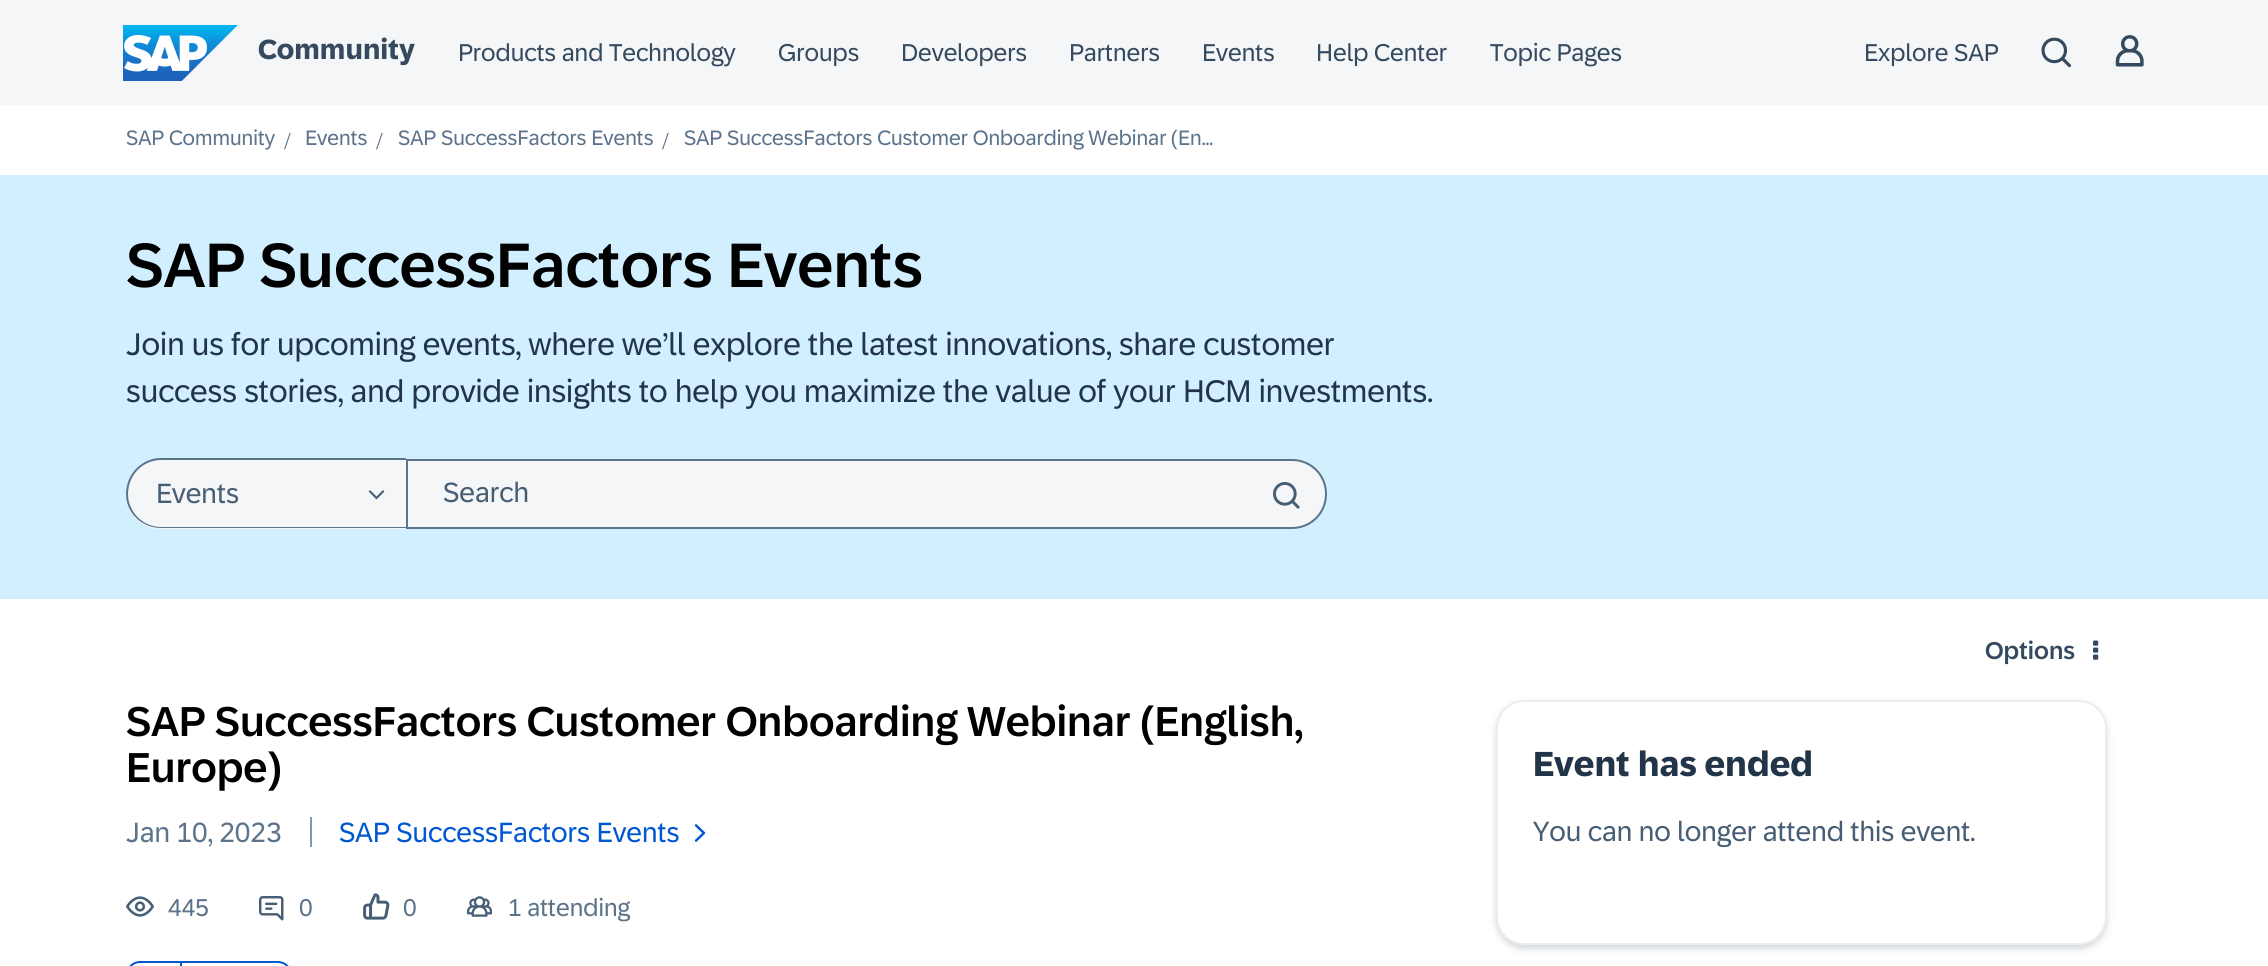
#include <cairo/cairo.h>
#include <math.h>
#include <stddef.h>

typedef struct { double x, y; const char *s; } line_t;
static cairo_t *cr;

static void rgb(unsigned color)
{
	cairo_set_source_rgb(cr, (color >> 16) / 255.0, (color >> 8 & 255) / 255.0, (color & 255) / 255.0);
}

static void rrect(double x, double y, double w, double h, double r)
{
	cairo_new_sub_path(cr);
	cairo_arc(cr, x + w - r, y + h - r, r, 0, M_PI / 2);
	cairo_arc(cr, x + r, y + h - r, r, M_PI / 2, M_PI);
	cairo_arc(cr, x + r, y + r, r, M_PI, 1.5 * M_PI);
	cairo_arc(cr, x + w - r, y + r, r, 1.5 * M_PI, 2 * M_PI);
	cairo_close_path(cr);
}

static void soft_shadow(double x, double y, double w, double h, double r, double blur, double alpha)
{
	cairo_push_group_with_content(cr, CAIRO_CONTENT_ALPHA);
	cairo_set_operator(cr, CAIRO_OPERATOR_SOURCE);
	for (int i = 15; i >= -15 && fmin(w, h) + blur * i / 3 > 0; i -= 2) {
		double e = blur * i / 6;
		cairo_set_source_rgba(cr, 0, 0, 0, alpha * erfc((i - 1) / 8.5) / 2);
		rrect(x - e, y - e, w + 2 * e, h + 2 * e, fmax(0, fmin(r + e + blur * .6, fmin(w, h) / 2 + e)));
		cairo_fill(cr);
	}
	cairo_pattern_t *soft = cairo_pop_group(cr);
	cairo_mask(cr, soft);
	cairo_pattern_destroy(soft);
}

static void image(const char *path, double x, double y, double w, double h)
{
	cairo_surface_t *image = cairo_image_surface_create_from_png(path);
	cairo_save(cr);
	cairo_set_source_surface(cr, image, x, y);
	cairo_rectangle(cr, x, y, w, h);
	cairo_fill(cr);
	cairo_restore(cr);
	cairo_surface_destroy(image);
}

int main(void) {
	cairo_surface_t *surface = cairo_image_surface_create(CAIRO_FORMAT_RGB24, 2268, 966);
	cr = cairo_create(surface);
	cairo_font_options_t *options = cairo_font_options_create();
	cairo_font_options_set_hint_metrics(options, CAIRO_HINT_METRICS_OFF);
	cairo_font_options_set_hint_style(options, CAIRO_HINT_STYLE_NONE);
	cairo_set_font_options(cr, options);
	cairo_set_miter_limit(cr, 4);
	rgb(0xffffff);
	cairo_paint(cr);
	rgb(0xf5f6f7);
	cairo_rectangle(cr, 0, 0, 2268, 105);
	cairo_fill(cr);
	image("img/1.png", 123, 25, 115, 56);
	image("img/2.png", 2041, 37, 30, 31);
	image("img/3.png", 2115, 35, 29, 32);
	rgb(0xd1efff);
	cairo_rectangle(cr, 0, 175, 2268, 424);
	cairo_fill(cr);
	rgb(0xf5f6f7);
	cairo_new_path(cr);
	cairo_move_to(cr, 161, 459);
	cairo_line_to(cr, 406, 459);
	cairo_line_to(cr, 406, 529);
	cairo_line_to(cr, 161, 529);
	cairo_curve_to(cr, 141.5, 529, 126, 513.5, 126, 494);
	cairo_curve_to(cr, 126, 474.5, 141.5, 459, 161, 459);
	cairo_close_path(cr);
	cairo_fill(cr);
	rgb(0x5b738b);
	cairo_set_fill_rule(cr, CAIRO_FILL_RULE_EVEN_ODD);
	cairo_new_path(cr);
	cairo_move_to(cr, 161, 458);
	cairo_line_to(cr, 406, 458);
	cairo_line_to(cr, 406, 528);
	cairo_line_to(cr, 161, 528);
	cairo_curve_to(cr, 142, 528, 126, 513, 126, 494);
	cairo_curve_to(cr, 126, 474, 142, 458, 161, 458);
	cairo_close_path(cr);
	cairo_move_to(cr, 161, 460);
	cairo_line_to(cr, 406, 460);
	cairo_line_to(cr, 406, 527);
	cairo_line_to(cr, 161, 527);
	cairo_curve_to(cr, 143, 527, 128, 512, 128, 494);
	cairo_curve_to(cr, 128, 475, 143, 460, 161, 460);
	cairo_close_path(cr);
	cairo_fill(cr);
	image("img/4.png", 368, 490, 17, 10);
	rgb(0xf5f6f7);
	cairo_new_path(cr);
	cairo_move_to(cr, 407, 460);
	cairo_line_to(cr, 1292, 460);
	cairo_curve_to(cr, 1311, 460, 1326, 475, 1326, 494);
	cairo_curve_to(cr, 1326, 513, 1311, 528, 1292, 528);
	cairo_line_to(cr, 407, 528);
	cairo_close_path(cr);
	cairo_fill_preserve(cr);
	rgb(0x5b738b);
	cairo_stroke(cr);
	image("img/5.png", 1273, 482, 27, 27);
	image("img/6.png", 2093, 640, 6, 20);
	rgb(0x8396a8);
	cairo_rectangle(cr, 310, 817, 2, 30);
	cairo_fill(cr);
	image("img/7.png", 694, 824, 12, 18);
	image("img/8.png", 126, 896, 28, 21);
	image("img/9.png", 259, 896, 25, 25);
	image("img/10.png", 363, 893, 27, 27);
	image("img/11.png", 466, 896, 27, 21);
	rrect(127, 962, 164, 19, 13);
	rgb(0x0057d2);
	cairo_stroke(cr);
	cairo_rectangle(cr, 180, 963, 2, 3);
	cairo_fill(cr);
	rgb(0x223649);
	soft_shadow(1496, 704, 611, 245, 28, 3.5, 0.2);
	rgb(0xffffff);
	rrect(1497, 701, 609, 243, 27);
	cairo_fill_preserve(cr);
	rgb(0xeaecee);
	cairo_stroke(cr);
	cairo_select_font_face(cr, "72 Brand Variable", CAIRO_FONT_SLANT_NORMAL, CAIRO_FONT_WEIGHT_BOLD);
	cairo_set_font_size(cr, 28);
	rgb(0x354a5f);
	cairo_move_to(cr, 258, 59);
	cairo_show_text(cr, "Community");
	cairo_select_font_face(cr, "72 Brand Variable", CAIRO_FONT_SLANT_NORMAL, CAIRO_FONT_WEIGHT_NORMAL);
	cairo_set_font_size(cr, 24.5);
	{
		static const line_t items[] = {
			{458, 61, "Products and Technology"},
			{778, 61, "Groups"},
			{901, 61, "Developers"},
			{1069, 61, "Partners"},
			{1202, 61, "Events"},
			{1316, 61, "Help Center"},
			{1490, 61, "Topic Pages"},
			{1864, 61, "Explore SAP"},
		};
		for (size_t i = 0; i < sizeof items / sizeof *items; i++) {
			cairo_move_to(cr, items[i].x, items[i].y);
			cairo_show_text(cr, items[i].s);
		}
	}
	cairo_set_font_size(cr, 21);
	rgb(0x5b738b);
	cairo_move_to(cr, 126, 145);
	cairo_show_text(cr, "SAP Community");
	cairo_select_font_face(cr, "Liberation Serif", CAIRO_FONT_SLANT_NORMAL, CAIRO_FONT_WEIGHT_NORMAL);
	cairo_set_font_size(cr, 24.5);
	cairo_move_to(cr, 284, 149);
	cairo_show_text(cr, "/");
	cairo_select_font_face(cr, "72 Brand Variable", CAIRO_FONT_SLANT_NORMAL, CAIRO_FONT_WEIGHT_NORMAL);
	cairo_set_font_size(cr, 21);
	cairo_move_to(cr, 305, 145);
	cairo_show_text(cr, "Events");
	cairo_select_font_face(cr, "Liberation Serif", CAIRO_FONT_SLANT_NORMAL, CAIRO_FONT_WEIGHT_NORMAL);
	cairo_set_font_size(cr, 24.5);
	cairo_move_to(cr, 376, 149);
	cairo_show_text(cr, "/");
	cairo_select_font_face(cr, "72 Brand Variable", CAIRO_FONT_SLANT_NORMAL, CAIRO_FONT_WEIGHT_NORMAL);
	cairo_set_font_size(cr, 21);
	cairo_move_to(cr, 398, 145);
	cairo_show_text(cr, "SAP SuccessFactors Events");
	cairo_select_font_face(cr, "Liberation Serif", CAIRO_FONT_SLANT_NORMAL, CAIRO_FONT_WEIGHT_NORMAL);
	cairo_set_font_size(cr, 24.5);
	cairo_move_to(cr, 662, 149);
	cairo_show_text(cr, "/");
	cairo_select_font_face(cr, "72 Brand Variable", CAIRO_FONT_SLANT_NORMAL, CAIRO_FONT_WEIGHT_NORMAL);
	cairo_set_font_size(cr, 21);
	cairo_move_to(cr, 684, 145);
	cairo_show_text(cr, "SAP SuccessFactors Customer Onboarding Webinar (En...");
	cairo_select_font_face(cr, "72 Brand Variable Medium", CAIRO_FONT_SLANT_NORMAL, CAIRO_FONT_WEIGHT_NORMAL);
	cairo_set_font_size(cr, 63);
	rgb(0x000000);
	cairo_move_to(cr, 126, 287);
	cairo_show_text(cr, "SAP SuccessFactors Events");
	cairo_select_font_face(cr, "72 Brand Variable", CAIRO_FONT_SLANT_NORMAL, CAIRO_FONT_WEIGHT_NORMAL);
	cairo_set_font_size(cr, 31.5);
	rgb(0x223548);
	cairo_move_to(cr, 126, 355);
	cairo_show_text(cr, "Join us for upcoming events, where we’ll explore the latest innovations, share customer");
	cairo_move_to(cr, 126, 402);
	cairo_show_text(cr, "success stories, and provide insights to help you maximize the value of your HCM investments.");
	cairo_set_font_size(cr, 28);
	rgb(0x475e75);
	cairo_move_to(cr, 156, 503);
	cairo_show_text(cr, "Events");
	cairo_move_to(cr, 443, 502);
	cairo_show_text(cr, "Search");
	cairo_select_font_face(cr, "72 Brand Variable Medium", CAIRO_FONT_SLANT_NORMAL, CAIRO_FONT_WEIGHT_NORMAL);
	cairo_set_font_size(cr, 24.5);
	rgb(0x354a5f);
	cairo_move_to(cr, 1985, 659);
	cairo_show_text(cr, "Options");
	cairo_set_font_size(cr, 42);
	rgb(0x000000);
	cairo_move_to(cr, 126, 736);
	cairo_show_text(cr, "SAP SuccessFactors Customer Onboarding Webinar (English,");
	cairo_move_to(cr, 126, 782);
	cairo_show_text(cr, "Europe)");
	cairo_select_font_face(cr, "72 Brand Variable", CAIRO_FONT_SLANT_NORMAL, CAIRO_FONT_WEIGHT_NORMAL);
	cairo_set_font_size(cr, 28);
	rgb(0x5b738b);
	cairo_move_to(cr, 126, 842);
	cairo_show_text(cr, "Jan 10, 2023");
	rgb(0x0057d2);
	cairo_move_to(cr, 339, 842);
	cairo_show_text(cr, "SAP SuccessFactors Events");
	cairo_set_font_size(cr, 24.5);
	rgb(0x5b738b);
	{
		static const line_t items[] = {
			{168, 916, "445"},
			{299, 916, "0"},
			{403, 916, "0"},
			{508, 916, "1 attending"},
		};
		for (size_t i = 0; i < sizeof items / sizeof *items; i++) {
			cairo_move_to(cr, items[i].x, items[i].y);
			cairo_show_text(cr, items[i].s);
		}
	}
	cairo_select_font_face(cr, "72 Brand Variable", CAIRO_FONT_SLANT_NORMAL, CAIRO_FONT_WEIGHT_BOLD);
	cairo_set_font_size(cr, 35);
	rgb(0x223548);
	cairo_move_to(cr, 1533, 776);
	cairo_show_text(cr, "Event has ended");
	cairo_select_font_face(cr, "72 Brand Variable", CAIRO_FONT_SLANT_NORMAL, CAIRO_FONT_WEIGHT_NORMAL);
	cairo_set_font_size(cr, 28);
	rgb(0x475e75);
	cairo_move_to(cr, 1533, 841);
	cairo_show_text(cr, "You can no longer attend this event.");
	cairo_surface_write_to_png(surface, "page.png");
	cairo_font_options_destroy(options);
	cairo_destroy(cr);
	cairo_surface_destroy(surface);
	return 0;
}
